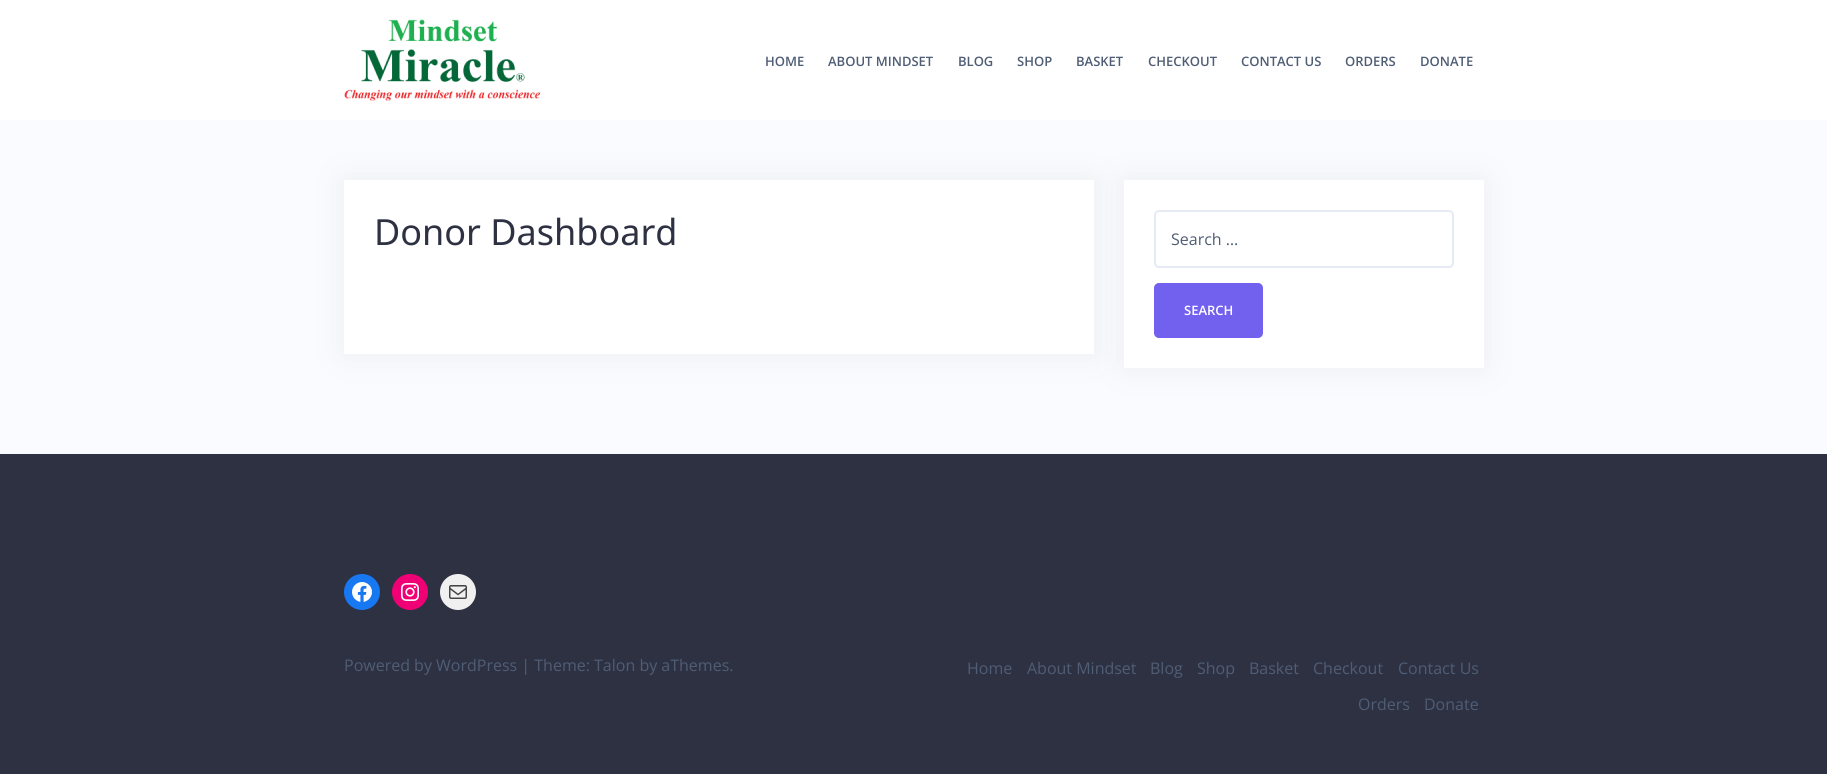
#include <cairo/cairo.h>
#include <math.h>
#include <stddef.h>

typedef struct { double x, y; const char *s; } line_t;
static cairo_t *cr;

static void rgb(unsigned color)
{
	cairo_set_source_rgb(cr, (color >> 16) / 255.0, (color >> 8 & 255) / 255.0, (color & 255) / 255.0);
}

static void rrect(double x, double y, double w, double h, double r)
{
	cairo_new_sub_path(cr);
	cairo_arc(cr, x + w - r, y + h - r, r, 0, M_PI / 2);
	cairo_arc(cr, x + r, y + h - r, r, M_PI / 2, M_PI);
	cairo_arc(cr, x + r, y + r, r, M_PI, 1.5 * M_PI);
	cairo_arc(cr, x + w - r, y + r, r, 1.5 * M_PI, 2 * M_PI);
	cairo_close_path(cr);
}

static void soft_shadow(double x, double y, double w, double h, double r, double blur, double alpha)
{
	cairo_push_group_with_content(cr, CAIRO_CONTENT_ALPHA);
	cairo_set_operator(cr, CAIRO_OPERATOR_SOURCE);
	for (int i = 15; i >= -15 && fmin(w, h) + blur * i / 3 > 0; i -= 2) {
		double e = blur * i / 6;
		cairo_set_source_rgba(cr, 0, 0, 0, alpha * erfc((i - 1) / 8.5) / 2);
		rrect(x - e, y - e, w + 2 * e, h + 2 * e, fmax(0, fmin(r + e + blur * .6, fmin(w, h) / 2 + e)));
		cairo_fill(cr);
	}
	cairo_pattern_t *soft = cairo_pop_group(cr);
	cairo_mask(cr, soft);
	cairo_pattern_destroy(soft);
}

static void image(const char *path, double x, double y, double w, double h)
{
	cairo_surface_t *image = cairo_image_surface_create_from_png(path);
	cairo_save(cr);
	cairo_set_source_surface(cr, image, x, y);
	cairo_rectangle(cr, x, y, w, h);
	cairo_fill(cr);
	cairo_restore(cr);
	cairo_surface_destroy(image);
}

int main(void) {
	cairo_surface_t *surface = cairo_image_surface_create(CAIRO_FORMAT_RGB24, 1827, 774);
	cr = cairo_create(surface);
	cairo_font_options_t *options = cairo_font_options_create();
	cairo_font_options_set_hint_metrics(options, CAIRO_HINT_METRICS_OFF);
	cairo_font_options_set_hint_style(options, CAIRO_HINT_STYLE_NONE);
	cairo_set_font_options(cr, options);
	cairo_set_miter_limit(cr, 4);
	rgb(0xfafbff);
	cairo_paint(cr);
	rgb(0xffffff);
	cairo_rectangle(cr, 0, 0, 1827, 120);
	cairo_fill(cr);
	image("img/1.png", 344, 19, 196, 82);
	rgb(0x7a7a7a);
	soft_shadow(344, 180, 750, 174, 0, 16, 0.1);
	rgb(0xffffff);
	cairo_rectangle(cr, 344, 180, 750, 174);
	cairo_fill(cr);
	rgb(0x7a7a7a);
	soft_shadow(1124, 180, 360, 188, 0, 16, 0.1);
	rgb(0xffffff);
	cairo_rectangle(cr, 1124, 180, 360, 188);
	cairo_fill(cr);
	rrect(1155, 211, 298, 56, 4);
	rgb(0xe5eaf5);
	cairo_stroke(cr);
	rgb(0x7261ee);
	rrect(1154, 283, 109, 55, 5);
	cairo_fill(cr);
	rgb(0x2d3142);
	cairo_rectangle(cr, 0, 454, 1827, 320);
	cairo_fill(cr);
	rgb(0x1778f2);
	cairo_arc(cr, 362, 592, 18, 0, 2 * M_PI);
	cairo_fill(cr);
	image("img/2.png", 352, 582, 20, 20);
	rgb(0xf00075);
	cairo_arc(cr, 410, 592, 18, 0, 2 * M_PI);
	cairo_fill(cr);
	image("img/3.png", 401, 583, 18, 18);
	rgb(0xf0f0f0);
	cairo_arc(cr, 458, 592, 18, 0, 2 * M_PI);
	cairo_fill(cr);
	image("img/4.png", 449, 585, 18, 14);
	cairo_select_font_face(cr, "Open Sans SemiBold", CAIRO_FONT_SLANT_NORMAL, CAIRO_FONT_WEIGHT_NORMAL);
	cairo_set_font_size(cr, 13);
	rgb(0x4f5d75);
	{
		static const line_t items[] = {
			{765, 66, "HOME"},
			{828, 66, "ABOUT MINDSET"},
			{958, 66, "BLOG"},
			{1017, 66, "SHOP"},
			{1076, 66, "BASKET"},
			{1148, 66, "CHECKOUT"},
			{1241, 66, "CONTACT US"},
			{1345, 66, "ORDERS"},
			{1420, 66, "DONATE"},
		};
		for (size_t i = 0; i < sizeof items / sizeof *items; i++) {
			cairo_move_to(cr, items[i].x, items[i].y);
			cairo_show_text(cr, items[i].s);
		}
	}
	cairo_select_font_face(cr, "Noto Sans", CAIRO_FONT_SLANT_NORMAL, CAIRO_FONT_WEIGHT_NORMAL);
	cairo_set_font_size(cr, 36);
	rgb(0x2d3142);
	cairo_move_to(cr, 374, 245);
	cairo_show_text(cr, "Donor Dashboard");
	cairo_select_font_face(cr, "Open Sans", CAIRO_FONT_SLANT_NORMAL, CAIRO_FONT_WEIGHT_NORMAL);
	cairo_set_font_size(cr, 16);
	rgb(0x4f5d75);
	cairo_move_to(cr, 1171, 245);
	cairo_show_text(cr, "Search …");
	cairo_select_font_face(cr, "Open Sans SemiBold", CAIRO_FONT_SLANT_NORMAL, CAIRO_FONT_WEIGHT_NORMAL);
	cairo_set_font_size(cr, 13);
	rgb(0xffffff);
	cairo_move_to(cr, 1184, 315);
	cairo_show_text(cr, "SEARCH");
	cairo_select_font_face(cr, "Open Sans", CAIRO_FONT_SLANT_NORMAL, CAIRO_FONT_WEIGHT_NORMAL);
	cairo_set_font_size(cr, 16);
	rgb(0x4f5d75);
	{
		static const line_t items[] = {
			{344, 671, "Powered by WordPress | Theme: Talon by aThemes."},
			{967, 674, "Home"},
			{1027, 674, "About Mindset"},
			{1150, 674, "Blog"},
			{1197, 674, "Shop"},
			{1249, 674, "Basket"},
			{1313, 674, "Checkout"},
			{1398, 674, "Contact Us"},
			{1358, 710, "Orders"},
			{1424, 710, "Donate"},
		};
		for (size_t i = 0; i < sizeof items / sizeof *items; i++) {
			cairo_move_to(cr, items[i].x, items[i].y);
			cairo_show_text(cr, items[i].s);
		}
	}
	cairo_surface_write_to_png(surface, "page.png");
	cairo_font_options_destroy(options);
	cairo_destroy(cr);
	cairo_surface_destroy(surface);
	return 0;
}
